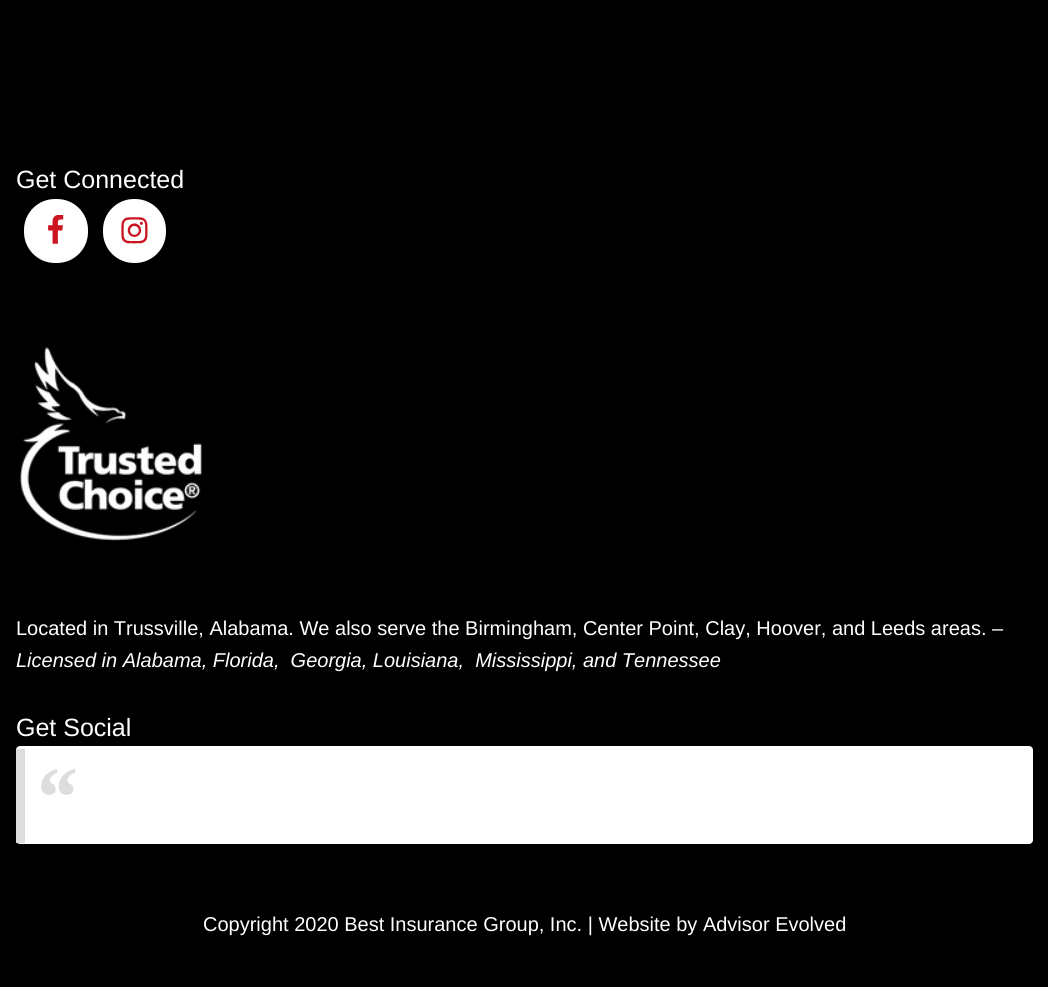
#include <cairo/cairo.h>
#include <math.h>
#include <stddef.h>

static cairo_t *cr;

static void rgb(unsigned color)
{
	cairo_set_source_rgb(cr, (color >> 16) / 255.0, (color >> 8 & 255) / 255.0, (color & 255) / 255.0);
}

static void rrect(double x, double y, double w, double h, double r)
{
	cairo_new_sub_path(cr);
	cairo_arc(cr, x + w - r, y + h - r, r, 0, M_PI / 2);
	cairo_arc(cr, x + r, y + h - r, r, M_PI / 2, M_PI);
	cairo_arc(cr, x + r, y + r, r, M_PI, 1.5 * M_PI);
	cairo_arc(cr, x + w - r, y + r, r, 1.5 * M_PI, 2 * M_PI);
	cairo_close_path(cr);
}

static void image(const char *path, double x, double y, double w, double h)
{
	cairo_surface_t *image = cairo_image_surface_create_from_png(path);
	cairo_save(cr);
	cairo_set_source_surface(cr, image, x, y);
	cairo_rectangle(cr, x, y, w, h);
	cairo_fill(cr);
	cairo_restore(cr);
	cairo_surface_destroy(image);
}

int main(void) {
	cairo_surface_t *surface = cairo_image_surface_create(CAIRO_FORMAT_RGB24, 1048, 987);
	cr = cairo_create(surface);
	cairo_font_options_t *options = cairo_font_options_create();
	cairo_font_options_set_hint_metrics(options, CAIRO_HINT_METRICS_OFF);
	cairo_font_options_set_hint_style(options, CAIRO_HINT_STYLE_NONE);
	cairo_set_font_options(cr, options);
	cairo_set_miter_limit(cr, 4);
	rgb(0x000000);
	cairo_paint(cr);
	rgb(0xffffff);
	rrect(24, 199, 64, 64, 31);
	cairo_fill(cr);
	image("img/1.png", 48, 215, 16, 29);
	rrect(103, 199, 63, 64, 31);
	cairo_fill(cr);
	image("img/2.png", 121, 217, 27, 27);
	image("img/3.png", 20, 347, 182, 194);
	rrect(16, 746, 1017, 98, 4);
	cairo_fill(cr);
	rgb(0xdddddd);
	cairo_rectangle(cr, 16, 749, 9, 94);
	cairo_fill(cr);
	cairo_select_font_face(cr, "Liberation Sans", CAIRO_FONT_SLANT_NORMAL, CAIRO_FONT_WEIGHT_NORMAL);
	cairo_set_font_size(cr, 25);
	rgb(0xffffff);
	cairo_move_to(cr, 16, 188);
	cairo_show_text(cr, "Get Connected");
	cairo_set_font_size(cr, 20);
	cairo_move_to(cr, 16, 635);
	cairo_show_text(cr, "Located in Trussville, Alabama. We also serve the Birmingham, Center Point, Clay, Hoover, and Leeds areas. –");
	cairo_select_font_face(cr, "Liberation Sans", CAIRO_FONT_SLANT_ITALIC, CAIRO_FONT_WEIGHT_NORMAL);
	cairo_move_to(cr, 16, 667);
	cairo_show_text(cr, "Licensed in Alabama, Florida,  Georgia, Louisiana,  Mississippi, and Tennessee");
	cairo_select_font_face(cr, "Liberation Sans", CAIRO_FONT_SLANT_NORMAL, CAIRO_FONT_WEIGHT_NORMAL);
	cairo_set_font_size(cr, 25);
	cairo_move_to(cr, 16, 736);
	cairo_show_text(cr, "Get Social");
	cairo_select_font_face(cr, "Liberation Serif", CAIRO_FONT_SLANT_ITALIC, CAIRO_FONT_WEIGHT_BOLD);
	cairo_set_font_size(cr, 86);
	rgb(0xdddddd);
	cairo_move_to(cr, 33, 826);
	cairo_show_text(cr, "“");
	cairo_select_font_face(cr, "Liberation Sans", CAIRO_FONT_SLANT_NORMAL, CAIRO_FONT_WEIGHT_NORMAL);
	cairo_set_font_size(cr, 20);
	rgb(0xffffff);
	cairo_move_to(cr, 203, 931);
	cairo_show_text(cr, "Copyright 2020 Best Insurance Group, Inc. | Website by Advisor Evolved");
	cairo_surface_write_to_png(surface, "page.png");
	cairo_font_options_destroy(options);
	cairo_destroy(cr);
	cairo_surface_destroy(surface);
	return 0;
}
